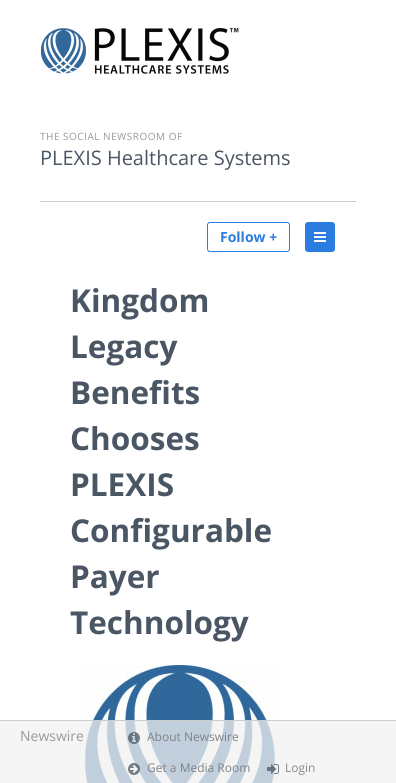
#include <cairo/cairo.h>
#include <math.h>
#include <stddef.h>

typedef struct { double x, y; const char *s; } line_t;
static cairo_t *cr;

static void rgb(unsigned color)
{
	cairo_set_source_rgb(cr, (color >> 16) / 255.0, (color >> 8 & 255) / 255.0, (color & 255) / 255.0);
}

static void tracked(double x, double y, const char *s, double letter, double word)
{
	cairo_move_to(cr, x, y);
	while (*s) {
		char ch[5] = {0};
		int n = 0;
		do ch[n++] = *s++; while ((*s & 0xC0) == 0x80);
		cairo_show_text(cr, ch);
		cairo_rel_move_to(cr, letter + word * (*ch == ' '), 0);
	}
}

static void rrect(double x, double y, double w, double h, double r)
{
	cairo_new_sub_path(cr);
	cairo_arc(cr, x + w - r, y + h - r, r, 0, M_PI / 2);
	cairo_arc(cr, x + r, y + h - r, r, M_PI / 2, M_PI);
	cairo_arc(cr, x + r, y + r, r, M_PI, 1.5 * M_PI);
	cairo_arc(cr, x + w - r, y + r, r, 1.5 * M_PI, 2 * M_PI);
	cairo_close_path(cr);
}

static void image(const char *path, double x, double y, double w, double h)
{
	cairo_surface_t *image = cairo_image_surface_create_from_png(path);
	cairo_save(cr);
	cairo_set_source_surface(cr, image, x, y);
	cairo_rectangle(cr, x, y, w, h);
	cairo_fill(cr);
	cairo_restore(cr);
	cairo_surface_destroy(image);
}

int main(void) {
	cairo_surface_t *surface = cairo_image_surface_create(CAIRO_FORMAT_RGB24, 396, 783);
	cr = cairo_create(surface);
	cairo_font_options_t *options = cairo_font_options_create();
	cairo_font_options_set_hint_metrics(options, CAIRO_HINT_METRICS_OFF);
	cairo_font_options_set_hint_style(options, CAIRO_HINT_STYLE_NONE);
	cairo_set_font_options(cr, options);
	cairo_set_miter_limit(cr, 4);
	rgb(0xffffff);
	cairo_paint(cr);
	rgb(0xcccccc);
	cairo_rectangle(cr, 40, 201, 316, 1);
	cairo_fill(cr);
	image("img/1.png", 40, 27, 199, 47);
	rrect(207.5, 222.5, 82, 29, 2.5);
	rgb(0x2a7ddf);
	cairo_set_line_width(cr, 1);
	cairo_stroke(cr);
	rrect(305, 222, 30, 30, 3);
	cairo_fill(cr);
	image("img/2.png", 314, 232, 12, 10);
	image("img/3.png", 78, 665, 201, 118);
	cairo_set_source_rgba(cr, 0.945, 0.945, 0.945, 0.75);
	cairo_rectangle(cr, 0, 721, 396, 62);
	cairo_fill(cr);
	rgb(0xcccccc);
	cairo_rectangle(cr, 0, 720, 396, 1);
	cairo_fill(cr);
	image("img/4.png", 128, 732, 12, 12);
	image("img/5.png", 128, 763, 12, 12);
	image("img/6.png", 267, 764, 12, 10);
	cairo_select_font_face(cr, "Open Sans", CAIRO_FONT_SLANT_NORMAL, CAIRO_FONT_WEIGHT_NORMAL);
	cairo_set_font_size(cr, 10);
	rgb(0x999999);
	tracked(40, 140, "THE SOCIAL NEWSROOM OF", 0.5, 0);
	cairo_set_font_size(cr, 20);
	rgb(0x4b5664);
	cairo_move_to(cr, 40, 165);
	cairo_show_text(cr, "PLEXIS Healthcare Systems");
	cairo_select_font_face(cr, "Open Sans", CAIRO_FONT_SLANT_NORMAL, CAIRO_FONT_WEIGHT_BOLD);
	cairo_set_font_size(cr, 14);
	rgb(0x2a7ddf);
	cairo_move_to(cr, 220, 242);
	cairo_show_text(cr, "Follow +");
	cairo_set_font_size(cr, 31.5);
	rgb(0x4b5664);
	{
		static const line_t items[] = {
			{70, 312, "Kingdom"},
			{70, 358, "Legacy"},
			{70, 404, "Benefits"},
			{70, 450, "Chooses"},
			{70, 496, "PLEXIS"},
			{70, 542, "Configurable"},
			{70, 588, "Payer"},
			{70, 634, "Technology"},
		};
		for (size_t i = 0; i < sizeof items / sizeof *items; i++) {
			cairo_move_to(cr, items[i].x, items[i].y);
			cairo_show_text(cr, items[i].s);
		}
	}
	cairo_select_font_face(cr, "Open Sans", CAIRO_FONT_SLANT_NORMAL, CAIRO_FONT_WEIGHT_NORMAL);
	cairo_set_font_size(cr, 14);
	rgb(0x999999);
	cairo_move_to(cr, 20, 741);
	cairo_show_text(cr, "Newswire");
	cairo_set_font_size(cr, 12);
	rgb(0x808285);
	cairo_move_to(cr, 147, 741);
	cairo_show_text(cr, "About Newswire");
	cairo_move_to(cr, 147, 772);
	cairo_show_text(cr, "Get a Media Room");
	rgb(0x8a8a8a);
	cairo_move_to(cr, 285, 772);
	cairo_show_text(cr, "Login");
	cairo_surface_write_to_png(surface, "page.png");
	cairo_font_options_destroy(options);
	cairo_destroy(cr);
	cairo_surface_destroy(surface);
	return 0;
}
